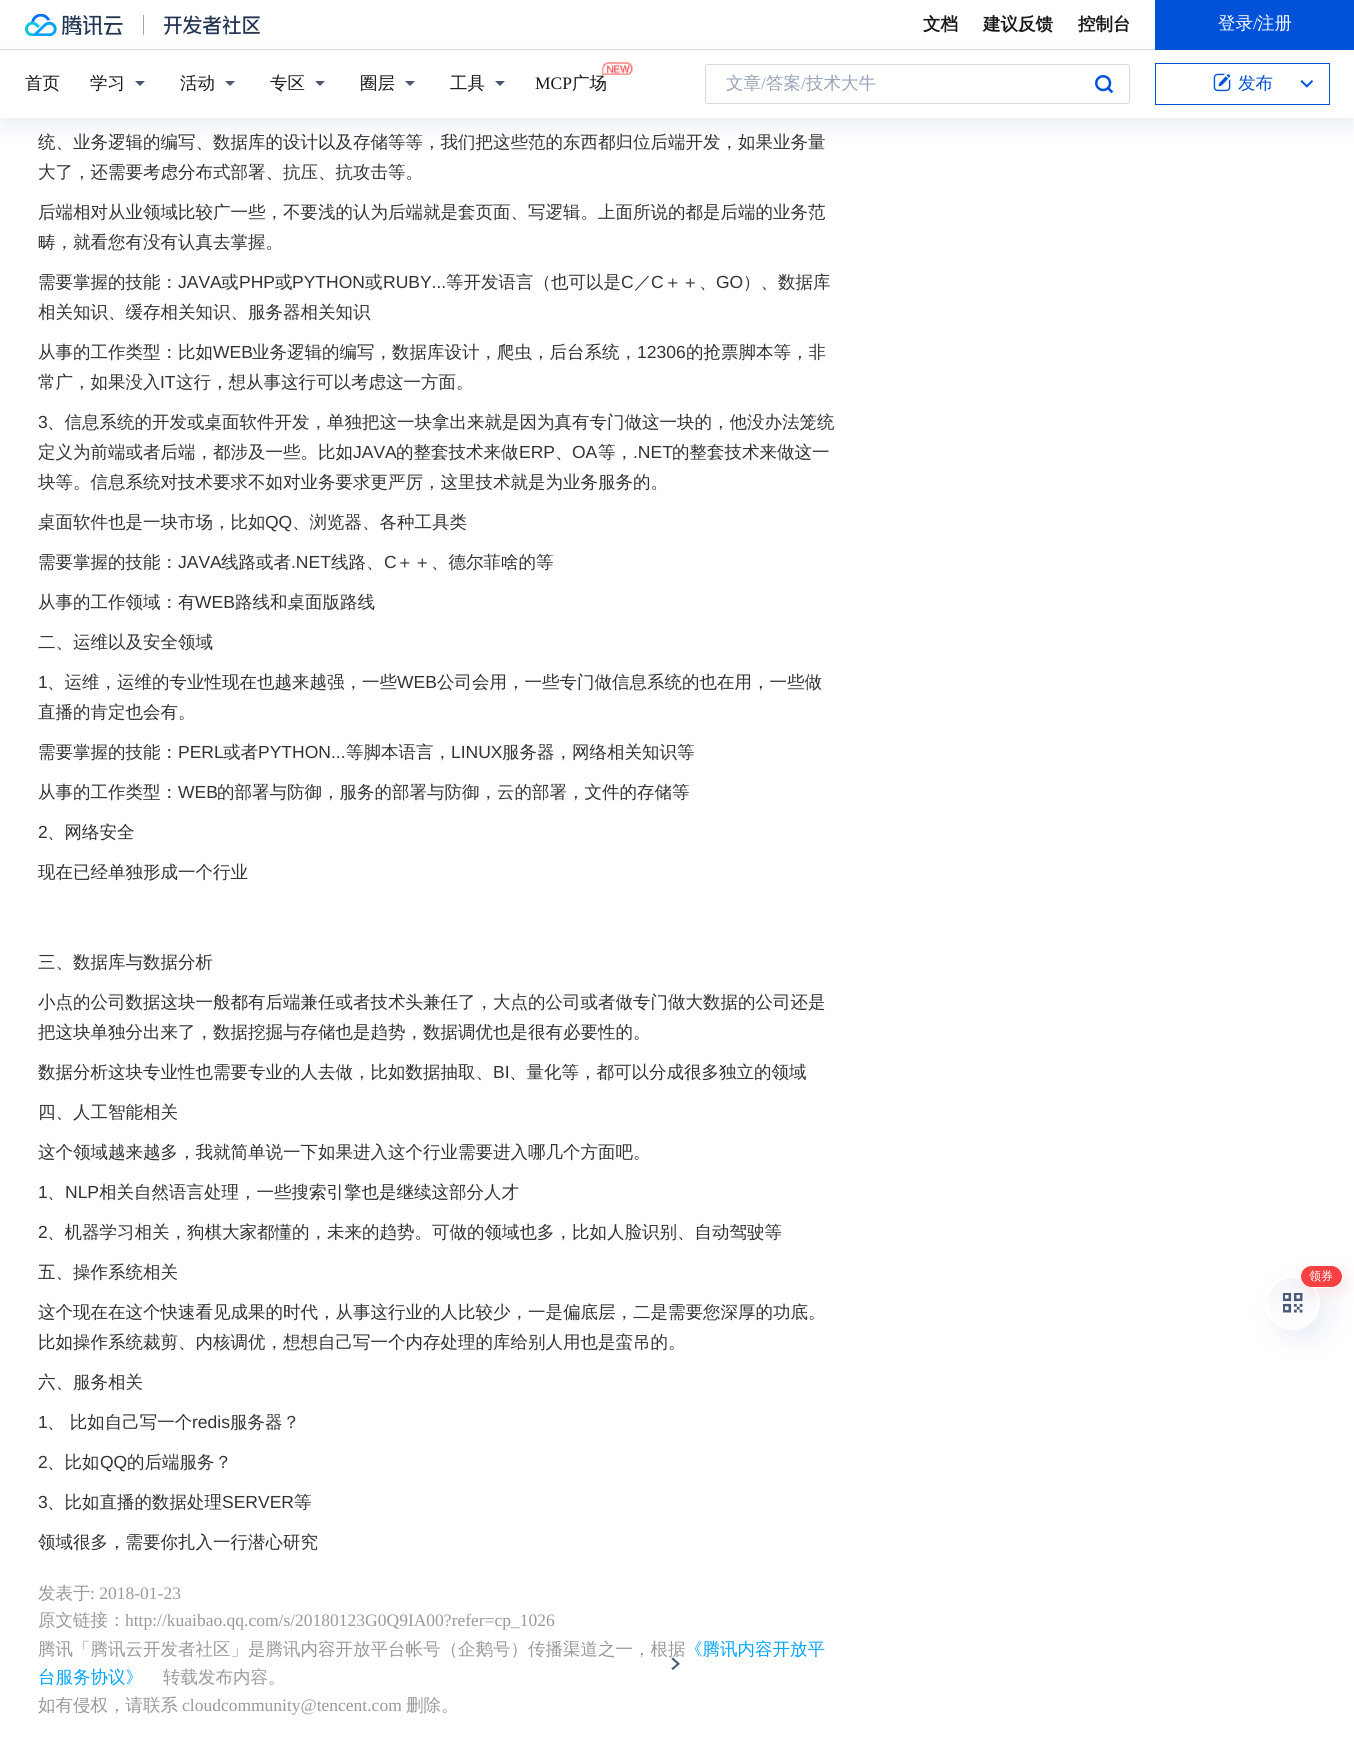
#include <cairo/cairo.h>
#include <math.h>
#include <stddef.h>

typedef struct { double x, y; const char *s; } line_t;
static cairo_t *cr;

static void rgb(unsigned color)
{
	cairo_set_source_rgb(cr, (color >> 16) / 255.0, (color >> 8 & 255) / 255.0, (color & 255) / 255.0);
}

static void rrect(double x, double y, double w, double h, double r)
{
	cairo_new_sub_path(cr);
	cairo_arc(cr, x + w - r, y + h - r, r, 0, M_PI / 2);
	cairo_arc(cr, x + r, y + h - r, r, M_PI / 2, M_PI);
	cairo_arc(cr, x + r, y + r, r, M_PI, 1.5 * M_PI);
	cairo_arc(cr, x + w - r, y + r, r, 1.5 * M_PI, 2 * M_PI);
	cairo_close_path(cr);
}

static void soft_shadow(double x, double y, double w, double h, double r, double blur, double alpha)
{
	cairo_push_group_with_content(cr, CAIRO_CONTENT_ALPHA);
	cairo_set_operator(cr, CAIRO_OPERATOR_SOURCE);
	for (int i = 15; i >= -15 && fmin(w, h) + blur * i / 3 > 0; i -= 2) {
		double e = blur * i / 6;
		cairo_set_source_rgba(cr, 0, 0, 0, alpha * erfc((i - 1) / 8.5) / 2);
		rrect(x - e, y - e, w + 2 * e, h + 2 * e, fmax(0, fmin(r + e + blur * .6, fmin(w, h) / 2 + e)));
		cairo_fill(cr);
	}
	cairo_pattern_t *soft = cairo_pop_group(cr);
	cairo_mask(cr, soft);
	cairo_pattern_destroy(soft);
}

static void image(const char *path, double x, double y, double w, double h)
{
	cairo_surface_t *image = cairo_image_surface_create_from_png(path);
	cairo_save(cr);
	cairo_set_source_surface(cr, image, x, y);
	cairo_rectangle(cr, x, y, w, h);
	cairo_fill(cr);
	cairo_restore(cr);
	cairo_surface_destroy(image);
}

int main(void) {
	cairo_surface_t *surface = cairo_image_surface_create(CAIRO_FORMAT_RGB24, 1354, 1750);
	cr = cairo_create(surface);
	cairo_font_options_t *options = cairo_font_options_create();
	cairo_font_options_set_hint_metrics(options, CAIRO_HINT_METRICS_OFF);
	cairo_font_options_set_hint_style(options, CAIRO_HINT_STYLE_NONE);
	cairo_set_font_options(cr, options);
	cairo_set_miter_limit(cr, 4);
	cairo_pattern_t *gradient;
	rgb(0xffffff);
	cairo_paint(cr);
	rgb(0xd6dbe3);
	cairo_rectangle(cr, 0, 49, 1155, 1);
	cairo_fill(cr);
	image("img/1.png", 25, 14, 98, 22);
	rgb(0x9ba6b7);
	cairo_rectangle(cr, 143, 15, 1, 20);
	cairo_fill(cr);
	image("img/2.png", 164, 15, 96, 20);
	rgb(0x0052d9);
	cairo_rectangle(cr, 1155, 0, 199, 50);
	cairo_fill(cr);
	rgb(0x3763aa);
	soft_shadow(0, 60, 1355, 68, 0, 10, 0.1);
	rgb(0xffffff);
	cairo_rectangle(cr, 0, 50, 1354, 68);
	cairo_fill(cr);
	rgb(0x495770);
	cairo_set_fill_rule(cr, CAIRO_FILL_RULE_EVEN_ODD);
	cairo_new_path(cr);
	cairo_move_to(cr, 140, 86);
	cairo_line_to(cr, 145, 81);
	cairo_line_to(cr, 135, 81);
	cairo_close_path(cr);
	cairo_fill(cr);
	cairo_new_path(cr);
	cairo_move_to(cr, 230, 86);
	cairo_line_to(cr, 235, 81);
	cairo_line_to(cr, 225, 81);
	cairo_close_path(cr);
	cairo_fill(cr);
	cairo_new_path(cr);
	cairo_move_to(cr, 320, 86);
	cairo_line_to(cr, 325, 81);
	cairo_line_to(cr, 315, 81);
	cairo_close_path(cr);
	cairo_fill(cr);
	cairo_new_path(cr);
	cairo_move_to(cr, 410, 86);
	cairo_line_to(cr, 415, 81);
	cairo_line_to(cr, 405, 81);
	cairo_close_path(cr);
	cairo_fill(cr);
	cairo_new_path(cr);
	cairo_move_to(cr, 500, 86);
	cairo_line_to(cr, 505, 81);
	cairo_line_to(cr, 495, 81);
	cairo_close_path(cr);
	cairo_fill(cr);
	rrect(705.5, 64.5, 424, 39, 2);
	rgb(0xd6dbe3);
	cairo_set_line_width(cr, 1);
	cairo_stroke(cr);
	image("img/4.png", 1095, 75, 19, 19);
	cairo_rectangle(cr, 1155.5, 63.5, 174, 41);
	rgb(0x0052d9);
	cairo_stroke(cr);
	image("img/5.png", 1213, 73, 18, 19);
	image("img/6.png", 1300, 80, 14, 8);
	rgb(0x3763aa);
	soft_shadow(1275, 1285, 55, 55, 27.5, 12.5, 0.1);
	cairo_save(cr);
	cairo_set_fill_rule(cr, CAIRO_FILL_RULE_WINDING);
	rrect(1265, 1275, 55, 55, 27.5);
	cairo_clip(cr);
	gradient = cairo_pattern_create_linear(1293, 1328, 1293, 1278);
	cairo_pattern_add_color_stop_rgba(gradient, 0, 1, 1, 1, 1);
	cairo_pattern_add_color_stop_rgba(gradient, 1, 0.953, 0.961, 0.973, 1);
	cairo_set_source(cr, gradient);
	cairo_pattern_destroy(gradient);
	cairo_rectangle(cr, 1265, 1278, 55, 50);
	cairo_fill(cr);
	cairo_restore(cr);
	cairo_arc(cr, 1292.5, 1302.5, 26, 0, 2 * M_PI);
	rgb(0xffffff);
	cairo_set_line_width(cr, 3);
	cairo_stroke(cr);
	image("img/8.png", 1283, 1293, 20, 20);
	rgb(0xd63535);
	soft_shadow(1305, 1270, 43, 23, 11.5, 7.5, 0.1);
	rgb(0xf64041);
	rrect(1300.5, 1265.5, 42, 22, 11);
	cairo_fill_preserve(cr);
	rgb(0xffffff);
	cairo_set_line_width(cr, 1);
	cairo_stroke(cr);
	cairo_select_font_face(cr, "WenQuanYi Zen Hei", CAIRO_FONT_SLANT_NORMAL, CAIRO_FONT_WEIGHT_BOLD);
	cairo_set_font_size(cr, 17.5);
	rgb(0x16181a);
	{
		static const line_t items[] = {
			{923, 30, "文档"},
			{983, 30, "建议反馈"},
			{1078, 30, "控制台"},
		};
		for (size_t i = 0; i < sizeof items / sizeof *items; i++) {
			cairo_move_to(cr, items[i].x, items[i].y);
			cairo_show_text(cr, items[i].s);
		}
	}
	cairo_select_font_face(cr, "WenQuanYi Zen Hei Medium", CAIRO_FONT_SLANT_NORMAL, CAIRO_FONT_WEIGHT_NORMAL);
	rgb(0xffffff);
	cairo_move_to(cr, 1218, 29);
	cairo_show_text(cr, "登录");
	cairo_select_font_face(cr, "Liberation Serif", CAIRO_FONT_SLANT_NORMAL, CAIRO_FONT_WEIGHT_NORMAL);
	cairo_move_to(cr, 1253, 29);
	cairo_show_text(cr, "/");
	cairo_select_font_face(cr, "WenQuanYi Zen Hei Medium", CAIRO_FONT_SLANT_NORMAL, CAIRO_FONT_WEIGHT_NORMAL);
	cairo_move_to(cr, 1257, 29);
	cairo_show_text(cr, "注册");
	rgb(0x16181a);
	{
		static const line_t items[] = {
			{25, 89, "首页"},
			{90, 89, "学习"},
			{180, 89, "活动"},
			{270, 89, "专区"},
			{360, 89, "圈层"},
			{450, 89, "工具"},
		};
		for (size_t i = 0; i < sizeof items / sizeof *items; i++) {
			cairo_move_to(cr, items[i].x, items[i].y);
			cairo_show_text(cr, items[i].s);
		}
	}
	cairo_select_font_face(cr, "Liberation Serif", CAIRO_FONT_SLANT_NORMAL, CAIRO_FONT_WEIGHT_NORMAL);
	cairo_move_to(cr, 535, 89);
	cairo_show_text(cr, "MCP");
	cairo_select_font_face(cr, "WenQuanYi Zen Hei Medium", CAIRO_FONT_SLANT_NORMAL, CAIRO_FONT_WEIGHT_NORMAL);
	cairo_move_to(cr, 572, 89);
	cairo_show_text(cr, "广场");
	image("img/3.png", 602, 62, 31, 13);
	rgb(0x97a3b7);
	cairo_move_to(cr, 726, 89);
	cairo_show_text(cr, "文章");
	cairo_select_font_face(cr, "Liberation Serif", CAIRO_FONT_SLANT_NORMAL, CAIRO_FONT_WEIGHT_NORMAL);
	cairo_move_to(cr, 761, 89);
	cairo_show_text(cr, "/");
	cairo_select_font_face(cr, "WenQuanYi Zen Hei Medium", CAIRO_FONT_SLANT_NORMAL, CAIRO_FONT_WEIGHT_NORMAL);
	cairo_move_to(cr, 766, 89);
	cairo_show_text(cr, "答案");
	cairo_select_font_face(cr, "Liberation Serif", CAIRO_FONT_SLANT_NORMAL, CAIRO_FONT_WEIGHT_NORMAL);
	cairo_move_to(cr, 801, 89);
	cairo_show_text(cr, "/");
	cairo_select_font_face(cr, "WenQuanYi Zen Hei Medium", CAIRO_FONT_SLANT_NORMAL, CAIRO_FONT_WEIGHT_NORMAL);
	cairo_move_to(cr, 806, 89);
	cairo_show_text(cr, "技术大牛");
	rgb(0x0052d9);
	cairo_move_to(cr, 1238, 89);
	cairo_show_text(cr, "发布");
	rgb(0x333333);
	{
		static const line_t items[] = {
			{38, 148, "统、业务逻辑的编写、数据库的设计以及存储等等，我们把这些范的东西都归位后端开发，如果业务量"},
			{38, 178, "大了，还需要考虑分布式部署、抗压、抗攻击等。"},
			{38, 218, "后端相对从业领域比较广一些，不要浅的认为后端就是套页面、写逻辑。上面所说的都是后端的业务范"},
			{38, 248, "畴，就看您有没有认真去掌握。"},
			{38, 288, "需要掌握的技能："},
		};
		for (size_t i = 0; i < sizeof items / sizeof *items; i++) {
			cairo_move_to(cr, items[i].x, items[i].y);
			cairo_show_text(cr, items[i].s);
		}
	}
	cairo_select_font_face(cr, "Liberation Sans", CAIRO_FONT_SLANT_NORMAL, CAIRO_FONT_WEIGHT_NORMAL);
	cairo_move_to(cr, 178, 288);
	cairo_show_text(cr, "JAVA");
	cairo_select_font_face(cr, "WenQuanYi Zen Hei Medium", CAIRO_FONT_SLANT_NORMAL, CAIRO_FONT_WEIGHT_NORMAL);
	cairo_move_to(cr, 221, 288);
	cairo_show_text(cr, "或");
	cairo_select_font_face(cr, "Liberation Sans", CAIRO_FONT_SLANT_NORMAL, CAIRO_FONT_WEIGHT_NORMAL);
	cairo_move_to(cr, 239, 288);
	cairo_show_text(cr, "PHP");
	cairo_select_font_face(cr, "WenQuanYi Zen Hei Medium", CAIRO_FONT_SLANT_NORMAL, CAIRO_FONT_WEIGHT_NORMAL);
	cairo_move_to(cr, 275, 288);
	cairo_show_text(cr, "或");
	cairo_select_font_face(cr, "Liberation Sans", CAIRO_FONT_SLANT_NORMAL, CAIRO_FONT_WEIGHT_NORMAL);
	cairo_move_to(cr, 292, 288);
	cairo_show_text(cr, "PYTHON");
	cairo_select_font_face(cr, "WenQuanYi Zen Hei Medium", CAIRO_FONT_SLANT_NORMAL, CAIRO_FONT_WEIGHT_NORMAL);
	cairo_move_to(cr, 365, 288);
	cairo_show_text(cr, "或");
	cairo_select_font_face(cr, "Liberation Sans", CAIRO_FONT_SLANT_NORMAL, CAIRO_FONT_WEIGHT_NORMAL);
	cairo_move_to(cr, 383, 288);
	cairo_show_text(cr, "RUBY...");
	cairo_select_font_face(cr, "WenQuanYi Zen Hei Medium", CAIRO_FONT_SLANT_NORMAL, CAIRO_FONT_WEIGHT_NORMAL);
	cairo_move_to(cr, 446, 288);
	cairo_show_text(cr, "等开发语言（也可以是");
	cairo_select_font_face(cr, "Liberation Sans", CAIRO_FONT_SLANT_NORMAL, CAIRO_FONT_WEIGHT_NORMAL);
	cairo_move_to(cr, 621, 288);
	cairo_show_text(cr, "C");
	cairo_select_font_face(cr, "WenQuanYi Zen Hei Medium", CAIRO_FONT_SLANT_NORMAL, CAIRO_FONT_WEIGHT_NORMAL);
	cairo_move_to(cr, 634, 288);
	cairo_show_text(cr, "／");
	cairo_select_font_face(cr, "Liberation Sans", CAIRO_FONT_SLANT_NORMAL, CAIRO_FONT_WEIGHT_NORMAL);
	cairo_move_to(cr, 651, 288);
	cairo_show_text(cr, "C");
	cairo_select_font_face(cr, "WenQuanYi Zen Hei Medium", CAIRO_FONT_SLANT_NORMAL, CAIRO_FONT_WEIGHT_NORMAL);
	cairo_move_to(cr, 664, 288);
	cairo_show_text(cr, "＋＋、");
	cairo_select_font_face(cr, "Liberation Sans", CAIRO_FONT_SLANT_NORMAL, CAIRO_FONT_WEIGHT_NORMAL);
	cairo_move_to(cr, 716, 288);
	cairo_show_text(cr, "GO");
	cairo_select_font_face(cr, "WenQuanYi Zen Hei Medium", CAIRO_FONT_SLANT_NORMAL, CAIRO_FONT_WEIGHT_NORMAL);
	{
		static const line_t items[] = {
			{743, 288, "）、数据库"},
			{38, 318, "相关知识、缓存相关知识、服务器相关知识"},
			{38, 358, "从事的工作类型：比如"},
		};
		for (size_t i = 0; i < sizeof items / sizeof *items; i++) {
			cairo_move_to(cr, items[i].x, items[i].y);
			cairo_show_text(cr, items[i].s);
		}
	}
	cairo_select_font_face(cr, "Liberation Sans", CAIRO_FONT_SLANT_NORMAL, CAIRO_FONT_WEIGHT_NORMAL);
	cairo_move_to(cr, 213, 358);
	cairo_show_text(cr, "WEB");
	cairo_select_font_face(cr, "WenQuanYi Zen Hei Medium", CAIRO_FONT_SLANT_NORMAL, CAIRO_FONT_WEIGHT_NORMAL);
	cairo_move_to(cr, 252, 358);
	cairo_show_text(cr, "业务逻辑的编写，数据库设计，爬虫，后台系统，");
	cairo_select_font_face(cr, "Liberation Sans", CAIRO_FONT_SLANT_NORMAL, CAIRO_FONT_WEIGHT_NORMAL);
	cairo_move_to(cr, 637, 358);
	cairo_show_text(cr, "12306");
	cairo_select_font_face(cr, "WenQuanYi Zen Hei Medium", CAIRO_FONT_SLANT_NORMAL, CAIRO_FONT_WEIGHT_NORMAL);
	cairo_move_to(cr, 686, 358);
	cairo_show_text(cr, "的抢票脚本等，非");
	cairo_move_to(cr, 38, 388);
	cairo_show_text(cr, "常广，如果没入");
	cairo_select_font_face(cr, "Liberation Sans", CAIRO_FONT_SLANT_NORMAL, CAIRO_FONT_WEIGHT_NORMAL);
	cairo_move_to(cr, 160, 388);
	cairo_show_text(cr, "IT");
	cairo_select_font_face(cr, "WenQuanYi Zen Hei Medium", CAIRO_FONT_SLANT_NORMAL, CAIRO_FONT_WEIGHT_NORMAL);
	cairo_move_to(cr, 176, 388);
	cairo_show_text(cr, "这行，想从事这行可以考虑这一方面。");
	cairo_select_font_face(cr, "Liberation Sans", CAIRO_FONT_SLANT_NORMAL, CAIRO_FONT_WEIGHT_NORMAL);
	cairo_move_to(cr, 38, 428);
	cairo_show_text(cr, "3");
	cairo_select_font_face(cr, "WenQuanYi Zen Hei Medium", CAIRO_FONT_SLANT_NORMAL, CAIRO_FONT_WEIGHT_NORMAL);
	cairo_move_to(cr, 47, 428);
	cairo_show_text(cr, "、信息系统的开发或桌面软件开发，单独把这一块拿出来就是因为真有专门做这一块的，他没办法笼统");
	cairo_move_to(cr, 38, 458);
	cairo_show_text(cr, "定义为前端或者后端，都涉及一些。比如");
	cairo_select_font_face(cr, "Liberation Sans", CAIRO_FONT_SLANT_NORMAL, CAIRO_FONT_WEIGHT_NORMAL);
	cairo_move_to(cr, 353, 458);
	cairo_show_text(cr, "JAVA");
	cairo_select_font_face(cr, "WenQuanYi Zen Hei Medium", CAIRO_FONT_SLANT_NORMAL, CAIRO_FONT_WEIGHT_NORMAL);
	cairo_move_to(cr, 396, 458);
	cairo_show_text(cr, "的整套技术来做");
	cairo_select_font_face(cr, "Liberation Sans", CAIRO_FONT_SLANT_NORMAL, CAIRO_FONT_WEIGHT_NORMAL);
	cairo_move_to(cr, 519, 458);
	cairo_show_text(cr, "ERP");
	cairo_move_to(cr, 572, 458);
	cairo_show_text(cr, "OA");
	cairo_select_font_face(cr, "WenQuanYi Zen Hei Medium", CAIRO_FONT_SLANT_NORMAL, CAIRO_FONT_WEIGHT_NORMAL);
	cairo_move_to(cr, 598, 458);
	cairo_show_text(cr, "等，");
	cairo_select_font_face(cr, "Liberation Sans", CAIRO_FONT_SLANT_NORMAL, CAIRO_FONT_WEIGHT_NORMAL);
	cairo_move_to(cr, 633, 458);
	cairo_show_text(cr, ".NET");
	cairo_select_font_face(cr, "WenQuanYi Zen Hei Medium", CAIRO_FONT_SLANT_NORMAL, CAIRO_FONT_WEIGHT_NORMAL);
	{
		static const line_t items[] = {
			{672, 458, "的整套技术来做这一"},
			{555, 458, "、"},
			{38, 488, "块等。信息系统对技术要求不如对业务要求更严厉，这里技术就是为业务服务的。"},
			{38, 528, "桌面软件也是一块市场，比如"},
		};
		for (size_t i = 0; i < sizeof items / sizeof *items; i++) {
			cairo_move_to(cr, items[i].x, items[i].y);
			cairo_show_text(cr, items[i].s);
		}
	}
	cairo_select_font_face(cr, "Liberation Sans", CAIRO_FONT_SLANT_NORMAL, CAIRO_FONT_WEIGHT_NORMAL);
	cairo_move_to(cr, 265, 528);
	cairo_show_text(cr, "QQ");
	cairo_select_font_face(cr, "WenQuanYi Zen Hei Medium", CAIRO_FONT_SLANT_NORMAL, CAIRO_FONT_WEIGHT_NORMAL);
	cairo_move_to(cr, 292, 528);
	cairo_show_text(cr, "、浏览器、各种工具类");
	cairo_move_to(cr, 38, 568);
	cairo_show_text(cr, "需要掌握的技能：");
	cairo_select_font_face(cr, "Liberation Sans", CAIRO_FONT_SLANT_NORMAL, CAIRO_FONT_WEIGHT_NORMAL);
	cairo_move_to(cr, 178, 568);
	cairo_show_text(cr, "JAVA");
	cairo_select_font_face(cr, "WenQuanYi Zen Hei Medium", CAIRO_FONT_SLANT_NORMAL, CAIRO_FONT_WEIGHT_NORMAL);
	cairo_move_to(cr, 221, 568);
	cairo_show_text(cr, "线路或者");
	cairo_select_font_face(cr, "Liberation Sans", CAIRO_FONT_SLANT_NORMAL, CAIRO_FONT_WEIGHT_NORMAL);
	cairo_move_to(cr, 291, 568);
	cairo_show_text(cr, ".NET");
	cairo_select_font_face(cr, "WenQuanYi Zen Hei Medium", CAIRO_FONT_SLANT_NORMAL, CAIRO_FONT_WEIGHT_NORMAL);
	cairo_move_to(cr, 331, 568);
	cairo_show_text(cr, "线路、");
	cairo_select_font_face(cr, "Liberation Sans", CAIRO_FONT_SLANT_NORMAL, CAIRO_FONT_WEIGHT_NORMAL);
	cairo_move_to(cr, 384, 568);
	cairo_show_text(cr, "C");
	cairo_select_font_face(cr, "WenQuanYi Zen Hei Medium", CAIRO_FONT_SLANT_NORMAL, CAIRO_FONT_WEIGHT_NORMAL);
	cairo_move_to(cr, 396, 568);
	cairo_show_text(cr, "＋＋、德尔菲啥的等");
	cairo_move_to(cr, 38, 608);
	cairo_show_text(cr, "从事的工作领域：有");
	cairo_select_font_face(cr, "Liberation Sans", CAIRO_FONT_SLANT_NORMAL, CAIRO_FONT_WEIGHT_NORMAL);
	cairo_move_to(cr, 195, 608);
	cairo_show_text(cr, "WEB");
	cairo_select_font_face(cr, "WenQuanYi Zen Hei Medium", CAIRO_FONT_SLANT_NORMAL, CAIRO_FONT_WEIGHT_NORMAL);
	cairo_move_to(cr, 235, 608);
	cairo_show_text(cr, "路线和桌面版路线");
	cairo_move_to(cr, 38, 648);
	cairo_show_text(cr, "二、运维以及安全领域");
	cairo_select_font_face(cr, "Liberation Sans", CAIRO_FONT_SLANT_NORMAL, CAIRO_FONT_WEIGHT_NORMAL);
	cairo_move_to(cr, 38, 688);
	cairo_show_text(cr, "1");
	cairo_select_font_face(cr, "WenQuanYi Zen Hei Medium", CAIRO_FONT_SLANT_NORMAL, CAIRO_FONT_WEIGHT_NORMAL);
	cairo_move_to(cr, 47, 688);
	cairo_show_text(cr, "、运维，运维的专业性现在也越来越强，一些");
	cairo_select_font_face(cr, "Liberation Sans", CAIRO_FONT_SLANT_NORMAL, CAIRO_FONT_WEIGHT_NORMAL);
	cairo_move_to(cr, 397, 688);
	cairo_show_text(cr, "WEB");
	cairo_select_font_face(cr, "WenQuanYi Zen Hei Medium", CAIRO_FONT_SLANT_NORMAL, CAIRO_FONT_WEIGHT_NORMAL);
	{
		static const line_t items[] = {
			{437, 688, "公司会用，一些专门做信息系统的也在用，一些做"},
			{38, 718, "直播的肯定也会有。"},
			{38, 758, "需要掌握的技能："},
		};
		for (size_t i = 0; i < sizeof items / sizeof *items; i++) {
			cairo_move_to(cr, items[i].x, items[i].y);
			cairo_show_text(cr, items[i].s);
		}
	}
	cairo_select_font_face(cr, "Liberation Sans", CAIRO_FONT_SLANT_NORMAL, CAIRO_FONT_WEIGHT_NORMAL);
	cairo_move_to(cr, 178, 758);
	cairo_show_text(cr, "PERL");
	cairo_select_font_face(cr, "WenQuanYi Zen Hei Medium", CAIRO_FONT_SLANT_NORMAL, CAIRO_FONT_WEIGHT_NORMAL);
	cairo_move_to(cr, 223, 758);
	cairo_show_text(cr, "或者");
	cairo_select_font_face(cr, "Liberation Sans", CAIRO_FONT_SLANT_NORMAL, CAIRO_FONT_WEIGHT_NORMAL);
	cairo_move_to(cr, 258, 758);
	cairo_show_text(cr, "PYTHON...");
	cairo_select_font_face(cr, "WenQuanYi Zen Hei Medium", CAIRO_FONT_SLANT_NORMAL, CAIRO_FONT_WEIGHT_NORMAL);
	cairo_move_to(cr, 346, 758);
	cairo_show_text(cr, "等脚本语言，");
	cairo_select_font_face(cr, "Liberation Sans", CAIRO_FONT_SLANT_NORMAL, CAIRO_FONT_WEIGHT_NORMAL);
	cairo_move_to(cr, 451, 758);
	cairo_show_text(cr, "LINUX");
	cairo_select_font_face(cr, "WenQuanYi Zen Hei Medium", CAIRO_FONT_SLANT_NORMAL, CAIRO_FONT_WEIGHT_NORMAL);
	cairo_move_to(cr, 502, 758);
	cairo_show_text(cr, "服务器，网络相关知识等");
	cairo_move_to(cr, 38, 798);
	cairo_show_text(cr, "从事的工作类型：");
	cairo_select_font_face(cr, "Liberation Sans", CAIRO_FONT_SLANT_NORMAL, CAIRO_FONT_WEIGHT_NORMAL);
	cairo_move_to(cr, 178, 798);
	cairo_show_text(cr, "WEB");
	cairo_select_font_face(cr, "WenQuanYi Zen Hei Medium", CAIRO_FONT_SLANT_NORMAL, CAIRO_FONT_WEIGHT_NORMAL);
	cairo_move_to(cr, 217, 798);
	cairo_show_text(cr, "的部署与防御，服务的部署与防御，云的部署，文件的存储等");
	cairo_select_font_face(cr, "Liberation Sans", CAIRO_FONT_SLANT_NORMAL, CAIRO_FONT_WEIGHT_NORMAL);
	cairo_move_to(cr, 38, 838);
	cairo_show_text(cr, "2");
	cairo_select_font_face(cr, "WenQuanYi Zen Hei Medium", CAIRO_FONT_SLANT_NORMAL, CAIRO_FONT_WEIGHT_NORMAL);
	{
		static const line_t items[] = {
			{47, 838, "、网络安全"},
			{38, 878, "现在已经单独形成一个行业"},
			{38, 968, "三、数据库与数据分析"},
			{38, 1008, "小点的公司数据这块一般都有后端兼任或者技术头兼任了，大点的公司或者做专门做大数据的公司还是"},
			{38, 1038, "把这块单独分出来了，数据挖掘与存储也是趋势，数据调优也是很有必要性的。"},
			{38, 1078, "数据分析这块专业性也需要专业的人去做，比如数据抽取、"},
		};
		for (size_t i = 0; i < sizeof items / sizeof *items; i++) {
			cairo_move_to(cr, items[i].x, items[i].y);
			cairo_show_text(cr, items[i].s);
		}
	}
	cairo_select_font_face(cr, "Liberation Sans", CAIRO_FONT_SLANT_NORMAL, CAIRO_FONT_WEIGHT_NORMAL);
	cairo_move_to(cr, 493, 1078);
	cairo_show_text(cr, "BI");
	cairo_select_font_face(cr, "WenQuanYi Zen Hei Medium", CAIRO_FONT_SLANT_NORMAL, CAIRO_FONT_WEIGHT_NORMAL);
	{
		static const line_t items[] = {
			{509, 1078, "、量化等，都可以分成很多独立的领域"},
			{38, 1118, "四、人工智能相关"},
			{38, 1158, "这个领域越来越多，我就简单说一下如果进入这个行业需要进入哪几个方面吧。"},
		};
		for (size_t i = 0; i < sizeof items / sizeof *items; i++) {
			cairo_move_to(cr, items[i].x, items[i].y);
			cairo_show_text(cr, items[i].s);
		}
	}
	cairo_select_font_face(cr, "Liberation Sans", CAIRO_FONT_SLANT_NORMAL, CAIRO_FONT_WEIGHT_NORMAL);
	cairo_move_to(cr, 38, 1198);
	cairo_show_text(cr, "1");
	cairo_move_to(cr, 65, 1198);
	cairo_show_text(cr, "NLP");
	cairo_select_font_face(cr, "WenQuanYi Zen Hei Medium", CAIRO_FONT_SLANT_NORMAL, CAIRO_FONT_WEIGHT_NORMAL);
	cairo_move_to(cr, 99, 1198);
	cairo_show_text(cr, "相关自然语言处理，一些搜索引擎也是继续这部分人才");
	cairo_move_to(cr, 47, 1198);
	cairo_show_text(cr, "、");
	cairo_select_font_face(cr, "Liberation Sans", CAIRO_FONT_SLANT_NORMAL, CAIRO_FONT_WEIGHT_NORMAL);
	cairo_move_to(cr, 38, 1238);
	cairo_show_text(cr, "2");
	cairo_select_font_face(cr, "WenQuanYi Zen Hei Medium", CAIRO_FONT_SLANT_NORMAL, CAIRO_FONT_WEIGHT_NORMAL);
	{
		static const line_t items[] = {
			{47, 1238, "、机器学习相关，狗棋大家都懂的，未来的趋势。可做的领域也多，比如人脸识别、自动驾驶等"},
			{38, 1278, "五、操作系统相关"},
			{38, 1318, "这个现在在这个快速看见成果的时代，从事这行业的人比较少，一是偏底层，二是需要您深厚的功底。"},
			{38, 1348, "比如操作系统裁剪、内核调优，想想自己写一个内存处理的库给别人用也是蛮吊的。"},
			{38, 1388, "六、服务相关"},
		};
		for (size_t i = 0; i < sizeof items / sizeof *items; i++) {
			cairo_move_to(cr, items[i].x, items[i].y);
			cairo_show_text(cr, items[i].s);
		}
	}
	cairo_select_font_face(cr, "Liberation Sans", CAIRO_FONT_SLANT_NORMAL, CAIRO_FONT_WEIGHT_NORMAL);
	cairo_move_to(cr, 38, 1428);
	cairo_show_text(cr, "1");
	cairo_select_font_face(cr, "WenQuanYi Zen Hei Medium", CAIRO_FONT_SLANT_NORMAL, CAIRO_FONT_WEIGHT_NORMAL);
	cairo_move_to(cr, 47, 1428);
	cairo_show_text(cr, "、 比如自己写一个");
	cairo_select_font_face(cr, "Liberation Sans", CAIRO_FONT_SLANT_NORMAL, CAIRO_FONT_WEIGHT_NORMAL);
	cairo_move_to(cr, 192, 1428);
	cairo_show_text(cr, "redis");
	cairo_select_font_face(cr, "WenQuanYi Zen Hei Medium", CAIRO_FONT_SLANT_NORMAL, CAIRO_FONT_WEIGHT_NORMAL);
	cairo_move_to(cr, 230, 1428);
	cairo_show_text(cr, "服务器？");
	cairo_select_font_face(cr, "Liberation Sans", CAIRO_FONT_SLANT_NORMAL, CAIRO_FONT_WEIGHT_NORMAL);
	cairo_move_to(cr, 38, 1468);
	cairo_show_text(cr, "2");
	cairo_select_font_face(cr, "WenQuanYi Zen Hei Medium", CAIRO_FONT_SLANT_NORMAL, CAIRO_FONT_WEIGHT_NORMAL);
	cairo_move_to(cr, 47, 1468);
	cairo_show_text(cr, "、比如");
	cairo_select_font_face(cr, "Liberation Sans", CAIRO_FONT_SLANT_NORMAL, CAIRO_FONT_WEIGHT_NORMAL);
	cairo_move_to(cr, 100, 1468);
	cairo_show_text(cr, "QQ");
	cairo_select_font_face(cr, "WenQuanYi Zen Hei Medium", CAIRO_FONT_SLANT_NORMAL, CAIRO_FONT_WEIGHT_NORMAL);
	cairo_move_to(cr, 127, 1468);
	cairo_show_text(cr, "的后端服务？");
	cairo_select_font_face(cr, "Liberation Sans", CAIRO_FONT_SLANT_NORMAL, CAIRO_FONT_WEIGHT_NORMAL);
	cairo_move_to(cr, 38, 1508);
	cairo_show_text(cr, "3");
	cairo_select_font_face(cr, "WenQuanYi Zen Hei Medium", CAIRO_FONT_SLANT_NORMAL, CAIRO_FONT_WEIGHT_NORMAL);
	cairo_move_to(cr, 47, 1508);
	cairo_show_text(cr, "、比如直播的数据处理");
	cairo_select_font_face(cr, "Liberation Sans", CAIRO_FONT_SLANT_NORMAL, CAIRO_FONT_WEIGHT_NORMAL);
	cairo_move_to(cr, 222, 1508);
	cairo_show_text(cr, "SERVER");
	cairo_select_font_face(cr, "WenQuanYi Zen Hei Medium", CAIRO_FONT_SLANT_NORMAL, CAIRO_FONT_WEIGHT_NORMAL);
	cairo_move_to(cr, 294, 1508);
	cairo_show_text(cr, "等");
	cairo_move_to(cr, 38, 1548);
	cairo_show_text(cr, "领域很多，需要你扎入一行潜心研究");
	rgb(0x999999);
	cairo_move_to(cr, 38, 1599);
	cairo_show_text(cr, "发表于");
	cairo_select_font_face(cr, "Liberation Serif", CAIRO_FONT_SLANT_NORMAL, CAIRO_FONT_WEIGHT_NORMAL);
	cairo_move_to(cr, 90, 1599);
	cairo_show_text(cr, ": 2018-01-23");
	cairo_select_font_face(cr, "WenQuanYi Zen Hei Medium", CAIRO_FONT_SLANT_NORMAL, CAIRO_FONT_WEIGHT_NORMAL);
	cairo_move_to(cr, 38, 1626);
	cairo_show_text(cr, "原文链接：");
	cairo_select_font_face(cr, "Liberation Serif", CAIRO_FONT_SLANT_NORMAL, CAIRO_FONT_WEIGHT_NORMAL);
	cairo_move_to(cr, 125, 1626);
	cairo_show_text(cr, "http://kuaibao.qq.com/s/20180123G0Q9IA00?refer=cp_1026");
	cairo_select_font_face(cr, "WenQuanYi Zen Hei Medium", CAIRO_FONT_SLANT_NORMAL, CAIRO_FONT_WEIGHT_NORMAL);
	cairo_move_to(cr, 38, 1655);
	cairo_show_text(cr, "腾讯「腾讯云开发者社区」是腾讯内容开放平台帐号（企鹅号）传播渠道之一，根据");
	rgb(0x00a4ff);
	cairo_move_to(cr, 685, 1655);
	cairo_show_text(cr, "《腾讯内容开放平");
	image("img/7.png", 671, 1657, 9, 13);
	cairo_move_to(cr, 38, 1683);
	cairo_show_text(cr, "台服务协议》");
	rgb(0x999999);
	cairo_move_to(cr, 163, 1683);
	cairo_show_text(cr, "转载发布内容。");
	cairo_move_to(cr, 38, 1711);
	cairo_show_text(cr, "如有侵权，请联系");
	cairo_select_font_face(cr, "Liberation Serif", CAIRO_FONT_SLANT_NORMAL, CAIRO_FONT_WEIGHT_NORMAL);
	cairo_move_to(cr, 182, 1711);
	cairo_show_text(cr, "cloudcommunity@tencent.com");
	cairo_select_font_face(cr, "WenQuanYi Zen Hei Medium", CAIRO_FONT_SLANT_NORMAL, CAIRO_FONT_WEIGHT_NORMAL);
	cairo_move_to(cr, 406, 1711);
	cairo_show_text(cr, "删除。");
	cairo_set_font_size(cr, 12);
	rgb(0xffffff);
	cairo_move_to(cr, 1309, 1280);
	cairo_show_text(cr, "领券");
	cairo_surface_write_to_png(surface, "page.png");
	cairo_font_options_destroy(options);
	cairo_destroy(cr);
	cairo_surface_destroy(surface);
	return 0;
}
